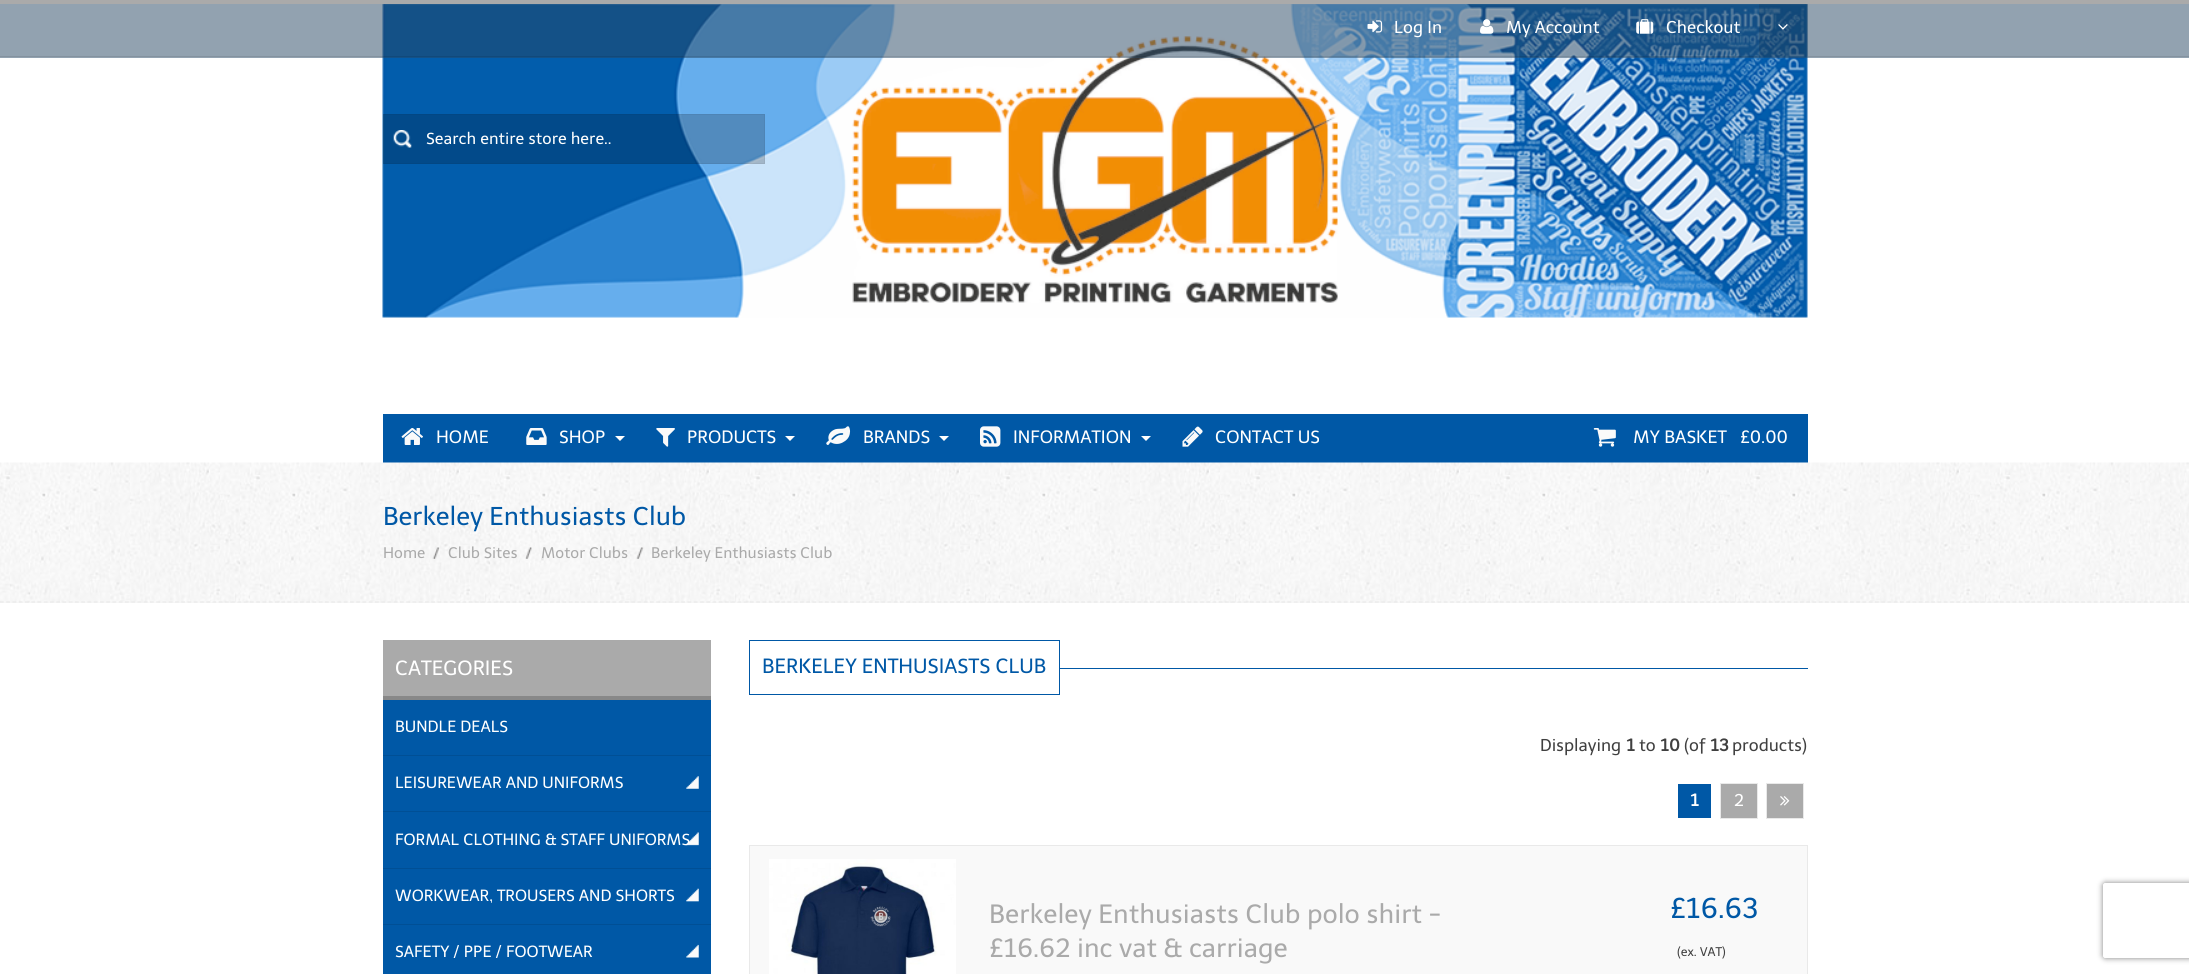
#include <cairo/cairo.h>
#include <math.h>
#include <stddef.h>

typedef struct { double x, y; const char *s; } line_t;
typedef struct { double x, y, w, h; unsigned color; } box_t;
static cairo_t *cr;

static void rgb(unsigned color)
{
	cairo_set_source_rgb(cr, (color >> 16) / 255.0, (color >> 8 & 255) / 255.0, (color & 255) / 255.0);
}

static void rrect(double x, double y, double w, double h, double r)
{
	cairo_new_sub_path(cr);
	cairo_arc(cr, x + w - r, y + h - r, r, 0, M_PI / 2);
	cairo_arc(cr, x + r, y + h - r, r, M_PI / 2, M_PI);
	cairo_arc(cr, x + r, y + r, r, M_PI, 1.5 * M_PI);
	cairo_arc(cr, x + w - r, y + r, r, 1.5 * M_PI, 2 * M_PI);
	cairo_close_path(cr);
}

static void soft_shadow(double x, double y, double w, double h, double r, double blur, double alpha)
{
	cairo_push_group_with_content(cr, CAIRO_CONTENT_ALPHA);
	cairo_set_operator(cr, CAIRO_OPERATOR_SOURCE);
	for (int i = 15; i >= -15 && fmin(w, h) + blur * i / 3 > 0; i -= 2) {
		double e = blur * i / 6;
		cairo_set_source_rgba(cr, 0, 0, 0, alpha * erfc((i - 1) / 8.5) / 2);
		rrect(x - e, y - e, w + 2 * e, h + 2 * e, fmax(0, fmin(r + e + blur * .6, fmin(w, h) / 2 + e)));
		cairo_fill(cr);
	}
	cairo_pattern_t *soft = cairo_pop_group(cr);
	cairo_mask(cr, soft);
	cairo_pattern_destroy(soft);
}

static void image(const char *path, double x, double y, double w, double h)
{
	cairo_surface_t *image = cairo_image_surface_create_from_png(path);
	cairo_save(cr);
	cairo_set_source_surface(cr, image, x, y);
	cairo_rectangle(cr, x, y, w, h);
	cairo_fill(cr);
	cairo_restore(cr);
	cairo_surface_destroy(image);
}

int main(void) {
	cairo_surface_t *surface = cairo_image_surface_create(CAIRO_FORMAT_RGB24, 2189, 974);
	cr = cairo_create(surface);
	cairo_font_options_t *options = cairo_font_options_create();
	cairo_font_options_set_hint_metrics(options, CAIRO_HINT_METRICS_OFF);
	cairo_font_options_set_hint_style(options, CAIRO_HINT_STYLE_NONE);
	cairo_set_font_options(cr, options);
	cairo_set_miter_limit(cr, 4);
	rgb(0xffffff);
	cairo_paint(cr);
	image("img/1.png", 382, 4, 1426, 314);
	rgb(0xaaaaaa);
	cairo_rectangle(cr, 0, 0, 2189, 4);
	cairo_fill(cr);
	cairo_set_source_rgba(cr, 0.153, 0.278, 0.384, 0.5);
	cairo_rectangle(cr, 0, 4, 2189, 54);
	cairo_fill(cr);
	cairo_set_source_rgba(cr, 0, 0, 0, 0.1);
	cairo_rectangle(cr, 0, 56, 2189, 1);
	cairo_fill(cr);
	image("img/2.png", 1367, 20, 16, 13);
	image("img/3.png", 1480, 19, 14, 15);
	image("img/4.png", 1636, 19, 18, 15);
	cairo_rectangle(cr, 1759, 4, 49, 52);
	cairo_fill(cr);
	image("img/5.png", 1778, 24, 10, 6);
	cairo_set_source_rgba(cr, 0, 0, 0, 0.2);
	cairo_rectangle(cr, 383, 114, 382, 50);
	cairo_fill(cr);
	image("img/6.png", 393, 130, 19, 18);
	cairo_rectangle(cr, 383.5, 114.5, 381, 49);
	cairo_set_source_rgba(cr, 0, 0, 0, 0.05);
	cairo_set_line_width(cr, 1);
	cairo_stroke(cr);
	rgb(0x0058a6);
	cairo_rectangle(cr, 383, 414, 1425, 49);
	cairo_fill(cr);
	image("img/7.png", 401, 428, 22, 17);
	image("img/8.png", 526, 428, 21, 17);
	rgb(0xffffff);
	cairo_new_path(cr);
	cairo_move_to(cr, 615, 436);
	cairo_line_to(cr, 625, 436);
	cairo_line_to(cr, 620, 441);
	cairo_close_path(cr);
	cairo_fill(cr);
	image("img/9.png", 656, 428, 19, 19);
	cairo_new_path(cr);
	cairo_move_to(cr, 785, 436);
	cairo_line_to(cr, 795, 436);
	cairo_line_to(cr, 790, 441);
	cairo_close_path(cr);
	cairo_fill(cr);
	image("img/10.png", 826, 426, 25, 19);
	cairo_new_path(cr);
	cairo_move_to(cr, 939, 436);
	cairo_line_to(cr, 949, 436);
	cairo_line_to(cr, 944, 441);
	cairo_close_path(cr);
	cairo_fill(cr);
	image("img/11.png", 980, 426, 21, 21);
	cairo_new_path(cr);
	cairo_move_to(cr, 1141, 436);
	cairo_line_to(cr, 1151, 436);
	cairo_line_to(cr, 1146, 441);
	cairo_close_path(cr);
	cairo_fill(cr);
	image("img/12.png", 1182, 426, 21, 21);
	image("img/13.png", 1593, 428, 23, 19);
	rgb(0xf5f5f5);
	cairo_rectangle(cr, 0, 602, 2189, 1);
	cairo_fill(cr);
	image("img/14.png", 0, 462, 2189, 141);
	cairo_new_path(cr);
	cairo_move_to(cr, 0, 602);
	cairo_line_to(cr, 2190, 602);
	rgb(0xe9e9e9);
	cairo_set_line_width(cr, 1.2);
	cairo_set_dash(cr, (double[]){3.75, 2.5}, 2, 0);
	cairo_stroke(cr);
	image("img/15.png", 432, 547, 8, 12);
	image("img/16.png", 525, 547, 7, 12);
	image("img/17.png", 636, 547, 8, 12);
	{
		static const box_t items[] = {
			{383, 640, 328, 56, 0xaaaaaa},
			{383, 696, 328, 4, 0x888888},
			{383, 700, 328, 274, 0x0058a6},
			{383, 755, 328, 1, 0x004f95},
		};
		for (size_t i = 0; i < sizeof items / sizeof *items; i++) {
			rgb(items[i].color);
			cairo_rectangle(cr, items[i].x, items[i].y, items[i].w, items[i].h);
			cairo_fill(cr);
		}
	}
	image("img/18.png", 686, 776, 13, 13);
	cairo_rectangle(cr, 383, 811, 328, 1);
	cairo_fill(cr);
	image("img/19.png", 686, 832, 13, 14);
	cairo_rectangle(cr, 383, 868, 328, 1);
	cairo_fill(cr);
	image("img/20.png", 686, 888, 13, 14);
	cairo_rectangle(cr, 383, 924, 328, 1);
	cairo_fill(cr);
	image("img/21.png", 686, 944, 13, 14);
	cairo_rectangle(cr, 749.5, 640.5, 310, 54);
	rgb(0x0058a6);
	cairo_set_line_width(cr, 1);
	cairo_set_dash(cr, NULL, 0, 0);
	cairo_stroke(cr);
	cairo_rectangle(cr, 1060, 668, 748, 1);
	cairo_fill(cr);
	cairo_rectangle(cr, 1678, 784, 33, 34);
	cairo_fill(cr);
	rgb(0xaaaaaa);
	cairo_rectangle(cr, 1720.5, 783.5, 37, 35);
	cairo_fill_preserve(cr);
	rgb(0xe9e9e9);
	cairo_stroke(cr);
	rgb(0xaaaaaa);
	cairo_rectangle(cr, 1766.5, 783.5, 37, 35);
	cairo_fill_preserve(cr);
	rgb(0xe9e9e9);
	cairo_stroke(cr);
	image("img/22.png", 1780, 796, 10, 10);
	rgb(0xf9f9f9);
	cairo_rectangle(cr, 749.5, 845.5, 1058, 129);
	cairo_fill_preserve(cr);
	rgb(0xe9e9e9);
	cairo_stroke(cr);
	image("img/23.png", 769, 859, 187, 115);
	cairo_save(cr);
	cairo_set_fill_rule(cr, CAIRO_FILL_RULE_EVEN_ODD);
	cairo_new_path(cr);
	cairo_move_to(cr, 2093, 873);
	cairo_line_to(cr, 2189, 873);
	cairo_line_to(cr, 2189, 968);
	cairo_line_to(cr, 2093, 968);
	cairo_close_path(cr);
	cairo_move_to(cr, 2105.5, 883);
	cairo_line_to(cr, 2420.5, 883);
	cairo_curve_to(cr, 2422, 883, 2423, 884, 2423, 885.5);
	cairo_line_to(cr, 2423, 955.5);
	cairo_curve_to(cr, 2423, 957, 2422, 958, 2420.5, 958);
	cairo_line_to(cr, 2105.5, 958);
	cairo_curve_to(cr, 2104, 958, 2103, 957, 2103, 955.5);
	cairo_line_to(cr, 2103, 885.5);
	cairo_curve_to(cr, 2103, 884, 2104, 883, 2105.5, 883);
	cairo_close_path(cr);
	cairo_clip(cr);
	rgb(0x808080);
	soft_shadow(2103, 883, 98, 75, 2.5, 3, 1);
	cairo_restore(cr);
	cairo_select_font_face(cr, "Telex", CAIRO_FONT_SLANT_NORMAL, CAIRO_FONT_WEIGHT_NORMAL);
	cairo_set_font_size(cr, 17);
	rgb(0xffffff);
	{
		static const line_t items[] = {
			{1394, 33, "Log In"},
			{1506, 33, "My Account"},
			{1666, 33, "Checkout"},
		};
		for (size_t i = 0; i < sizeof items / sizeof *items; i++) {
			cairo_move_to(cr, items[i].x, items[i].y);
			cairo_show_text(cr, items[i].s);
		}
	}
	cairo_set_font_size(cr, 16.1);
	cairo_move_to(cr, 426, 144);
	cairo_show_text(cr, "Search entire store here..");
	cairo_set_font_size(cr, 17.75);
	{
		static const line_t items[] = {
			{436, 443, "HOME"},
			{559, 443, "SHOP"},
			{687, 443, "PRODUCTS"},
			{863, 443, "BRANDS"},
			{1013, 443, "INFORMATION"},
			{1215, 443, "CONTACT US"},
			{1633, 443, "MY BASKET"},
			{1740, 443, "£0.00"},
		};
		for (size_t i = 0; i < sizeof items / sizeof *items; i++) {
			cairo_move_to(cr, items[i].x, items[i].y);
			cairo_show_text(cr, items[i].s);
		}
	}
	cairo_set_font_size(cr, 25.5);
	rgb(0x0058a6);
	cairo_move_to(cr, 383, 525);
	cairo_show_text(cr, "Berkeley Enthusiasts Club");
	cairo_set_font_size(cr, 15.25);
	rgb(0xaaaaaa);
	{
		static const line_t items[] = {
			{383, 558, "Home"},
			{448, 558, "Club Sites"},
			{541, 558, "Motor Clubs"},
			{651, 558, "Berkeley Enthusiasts Club"},
		};
		for (size_t i = 0; i < sizeof items / sizeof *items; i++) {
			cairo_move_to(cr, items[i].x, items[i].y);
			cairo_show_text(cr, items[i].s);
		}
	}
	cairo_set_font_size(cr, 20.4);
	rgb(0xffffff);
	cairo_move_to(cr, 395, 675);
	cairo_show_text(cr, "CATEGORIES");
	cairo_set_font_size(cr, 16.1);
	{
		static const line_t items[] = {
			{395, 732, "BUNDLE DEALS"},
			{395, 788, "LEISUREWEAR AND UNIFORMS"},
			{395, 845, "FORMAL CLOTHING & STAFF UNIFORMS"},
			{395, 901, "WORKWEAR, TROUSERS AND SHORTS"},
			{395, 957, "SAFETY / PPE / FOOTWEAR"},
		};
		for (size_t i = 0; i < sizeof items / sizeof *items; i++) {
			cairo_move_to(cr, items[i].x, items[i].y);
			cairo_show_text(cr, items[i].s);
		}
	}
	cairo_set_font_size(cr, 20.4);
	rgb(0x0058a6);
	cairo_move_to(cr, 762, 673);
	cairo_show_text(cr, "BERKELEY ENTHUSIASTS CLUB");
	cairo_set_font_size(cr, 17);
	rgb(0x404040);
	cairo_move_to(cr, 1540, 751);
	cairo_show_text(cr, "Displaying");
	cairo_select_font_face(cr, "Telex", CAIRO_FONT_SLANT_NORMAL, CAIRO_FONT_WEIGHT_BOLD);
	cairo_move_to(cr, 1626, 751);
	cairo_show_text(cr, "1");
	cairo_select_font_face(cr, "Telex", CAIRO_FONT_SLANT_NORMAL, CAIRO_FONT_WEIGHT_NORMAL);
	cairo_move_to(cr, 1639, 751);
	cairo_show_text(cr, "to");
	cairo_select_font_face(cr, "Telex", CAIRO_FONT_SLANT_NORMAL, CAIRO_FONT_WEIGHT_BOLD);
	cairo_move_to(cr, 1660, 751);
	cairo_show_text(cr, "10");
	cairo_select_font_face(cr, "Telex", CAIRO_FONT_SLANT_NORMAL, CAIRO_FONT_WEIGHT_NORMAL);
	cairo_move_to(cr, 1684, 751);
	cairo_show_text(cr, "(of");
	cairo_select_font_face(cr, "Telex", CAIRO_FONT_SLANT_NORMAL, CAIRO_FONT_WEIGHT_BOLD);
	cairo_move_to(cr, 1710, 751);
	cairo_show_text(cr, "13");
	cairo_select_font_face(cr, "Telex", CAIRO_FONT_SLANT_NORMAL, CAIRO_FONT_WEIGHT_NORMAL);
	cairo_move_to(cr, 1732, 751);
	cairo_show_text(cr, "products)");
	cairo_select_font_face(cr, "Telex", CAIRO_FONT_SLANT_NORMAL, CAIRO_FONT_WEIGHT_BOLD);
	rgb(0xffffff);
	cairo_move_to(cr, 1690, 806);
	cairo_show_text(cr, "1");
	cairo_select_font_face(cr, "Telex", CAIRO_FONT_SLANT_NORMAL, CAIRO_FONT_WEIGHT_NORMAL);
	cairo_move_to(cr, 1734, 806);
	cairo_show_text(cr, "2");
	cairo_set_font_size(cr, 26.2);
	rgb(0xaaaaaa);
	cairo_move_to(cr, 989, 923);
	cairo_show_text(cr, "Berkeley Enthusiasts Club polo shirt -");
	cairo_move_to(cr, 989, 957);
	cairo_show_text(cr, "£16.62 inc vat & carriage");
	cairo_set_font_size(cr, 28.5);
	rgb(0x0058a6);
	cairo_move_to(cr, 1670, 918);
	cairo_show_text(cr, "£16.63");
	cairo_set_font_size(cr, 12.5);
	rgb(0x404040);
	cairo_move_to(cr, 1677, 956);
	cairo_show_text(cr, "(ex. VAT)");
	cairo_surface_write_to_png(surface, "page.png");
	cairo_font_options_destroy(options);
	cairo_destroy(cr);
	cairo_surface_destroy(surface);
	return 0;
}
